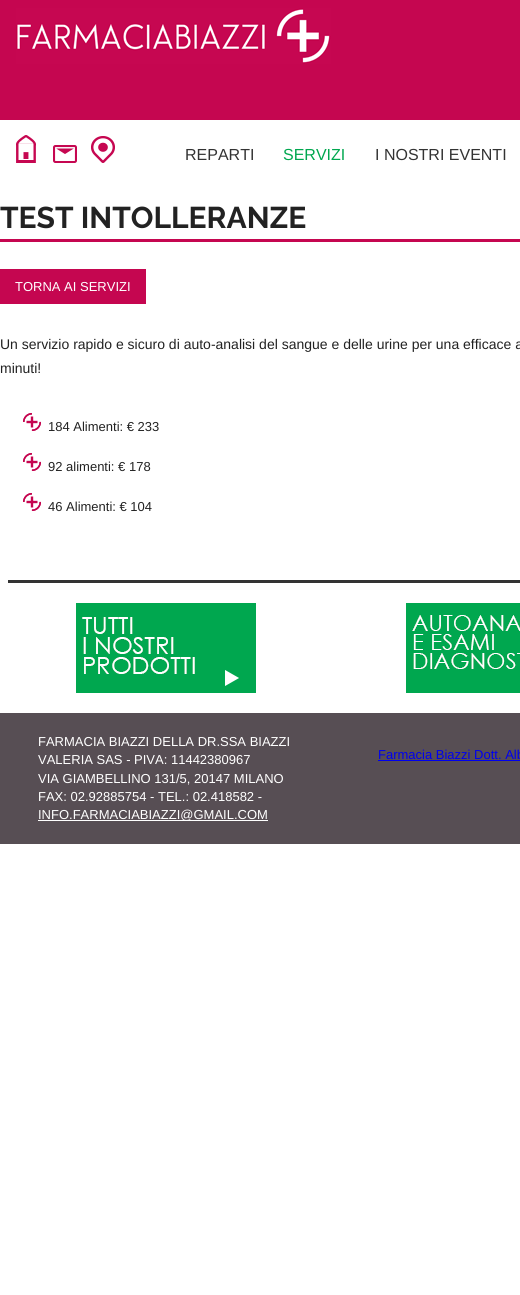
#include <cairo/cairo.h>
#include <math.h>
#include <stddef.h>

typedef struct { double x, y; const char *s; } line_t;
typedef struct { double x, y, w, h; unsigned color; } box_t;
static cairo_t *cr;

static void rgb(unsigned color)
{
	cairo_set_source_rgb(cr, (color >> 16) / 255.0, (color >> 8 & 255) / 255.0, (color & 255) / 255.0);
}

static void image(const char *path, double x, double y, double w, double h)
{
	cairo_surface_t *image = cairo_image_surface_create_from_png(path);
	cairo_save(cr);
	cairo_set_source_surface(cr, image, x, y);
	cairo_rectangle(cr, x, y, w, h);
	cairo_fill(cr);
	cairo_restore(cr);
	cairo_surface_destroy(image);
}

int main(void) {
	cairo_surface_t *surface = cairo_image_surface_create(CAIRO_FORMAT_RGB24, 520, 1295);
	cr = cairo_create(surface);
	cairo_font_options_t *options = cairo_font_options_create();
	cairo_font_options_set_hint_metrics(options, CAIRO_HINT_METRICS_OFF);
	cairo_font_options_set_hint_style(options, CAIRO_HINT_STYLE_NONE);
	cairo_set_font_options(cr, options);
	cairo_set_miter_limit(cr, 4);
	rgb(0xffffff);
	cairo_paint(cr);
	rgb(0xc50650);
	cairo_rectangle(cr, 0, 0, 520, 120);
	cairo_fill(cr);
	image("img/1.png", 16, 8, 315, 56);
	image("img/2.png", 16, 135, 20, 28);
	image("img/3.png", 53, 145, 24, 18);
	image("img/4.png", 91, 136, 24, 27);
	cairo_rectangle(cr, 0, 239, 520, 3);
	cairo_fill(cr);
	cairo_rectangle(cr, 0, 269, 146, 35);
	cairo_fill(cr);
	image("img/5.png", 23, 413, 18, 18);
	image("img/5.png", 23, 453, 18, 18);
	image("img/5.png", 23, 493, 18, 18);
	rgb(0x333333);
	cairo_rectangle(cr, 8, 580, 512, 3);
	cairo_fill(cr);
	image("img/6.png", 76, 603, 180, 90);
	image("img/7.png", 406, 603, 114, 90);
	{
		static const box_t items[] = {
			{0, 713, 520, 131, 0x574e54},
			{38, 820, 230, 1, 0xffffff},
			{378, 760, 142, 1, 0x0000ee},
		};
		for (size_t i = 0; i < sizeof items / sizeof *items; i++) {
			rgb(items[i].color);
			cairo_rectangle(cr, items[i].x, items[i].y, items[i].w, items[i].h);
			cairo_fill(cr);
		}
	}
	cairo_select_font_face(cr, "Liberation Sans", CAIRO_FONT_SLANT_NORMAL, CAIRO_FONT_WEIGHT_NORMAL);
	cairo_set_font_size(cr, 16);
	rgb(0x333333);
	cairo_move_to(cr, 185, 160);
	cairo_show_text(cr, "REPARTI");
	rgb(0x00a74f);
	cairo_move_to(cr, 283, 160);
	cairo_show_text(cr, "SERVIZI");
	rgb(0x333333);
	cairo_move_to(cr, 375, 160);
	cairo_show_text(cr, "I NOSTRI EVENTI");
	cairo_select_font_face(cr, "Raleway", CAIRO_FONT_SLANT_NORMAL, CAIRO_FONT_WEIGHT_BOLD);
	cairo_set_font_size(cr, 30);
	rgb(0x222222);
	cairo_move_to(cr, 0, 228);
	cairo_show_text(cr, "TEST INTOLLERANZE");
	cairo_select_font_face(cr, "Liberation Sans", CAIRO_FONT_SLANT_NORMAL, CAIRO_FONT_WEIGHT_NORMAL);
	cairo_set_font_size(cr, 13);
	rgb(0xffffff);
	cairo_move_to(cr, 15, 291);
	cairo_show_text(cr, "TORNA AI SERVIZI");
	cairo_set_font_size(cr, 14);
	rgb(0x222222);
	cairo_move_to(cr, 0, 349);
	cairo_show_text(cr, "Un servizio rapido e sicuro di auto-analisi del sangue e delle urine per una efficace a");
	cairo_move_to(cr, 0, 373);
	cairo_show_text(cr, "minuti!");
	cairo_set_font_size(cr, 13);
	{
		static const line_t items[] = {
			{48, 431, "184 Alimenti: € 233"},
			{48, 471, "92 alimenti: € 178"},
			{48, 511, "46 Alimenti: € 104"},
		};
		for (size_t i = 0; i < sizeof items / sizeof *items; i++) {
			cairo_move_to(cr, items[i].x, items[i].y);
			cairo_show_text(cr, items[i].s);
		}
	}
	rgb(0xffffff);
	{
		static const line_t items[] = {
			{38, 746, "FARMACIA BIAZZI DELLA DR.SSA BIAZZI"},
			{38, 764, "VALERIA SAS - PIVA: 11442380967"},
			{38, 783, "VIA GIAMBELLINO 131/5, 20147 MILANO"},
			{38, 801, "FAX: 02.92885754 - TEL.: 02.418582 -"},
			{38, 819, "INFO.FARMACIABIAZZI@GMAIL.COM"},
		};
		for (size_t i = 0; i < sizeof items / sizeof *items; i++) {
			cairo_move_to(cr, items[i].x, items[i].y);
			cairo_show_text(cr, items[i].s);
		}
	}
	rgb(0x0000ee);
	cairo_move_to(cr, 378, 759);
	cairo_show_text(cr, "Farmacia Biazzi Dott. Alb");
	cairo_surface_write_to_png(surface, "page.png");
	cairo_font_options_destroy(options);
	cairo_destroy(cr);
	cairo_surface_destroy(surface);
	return 0;
}
